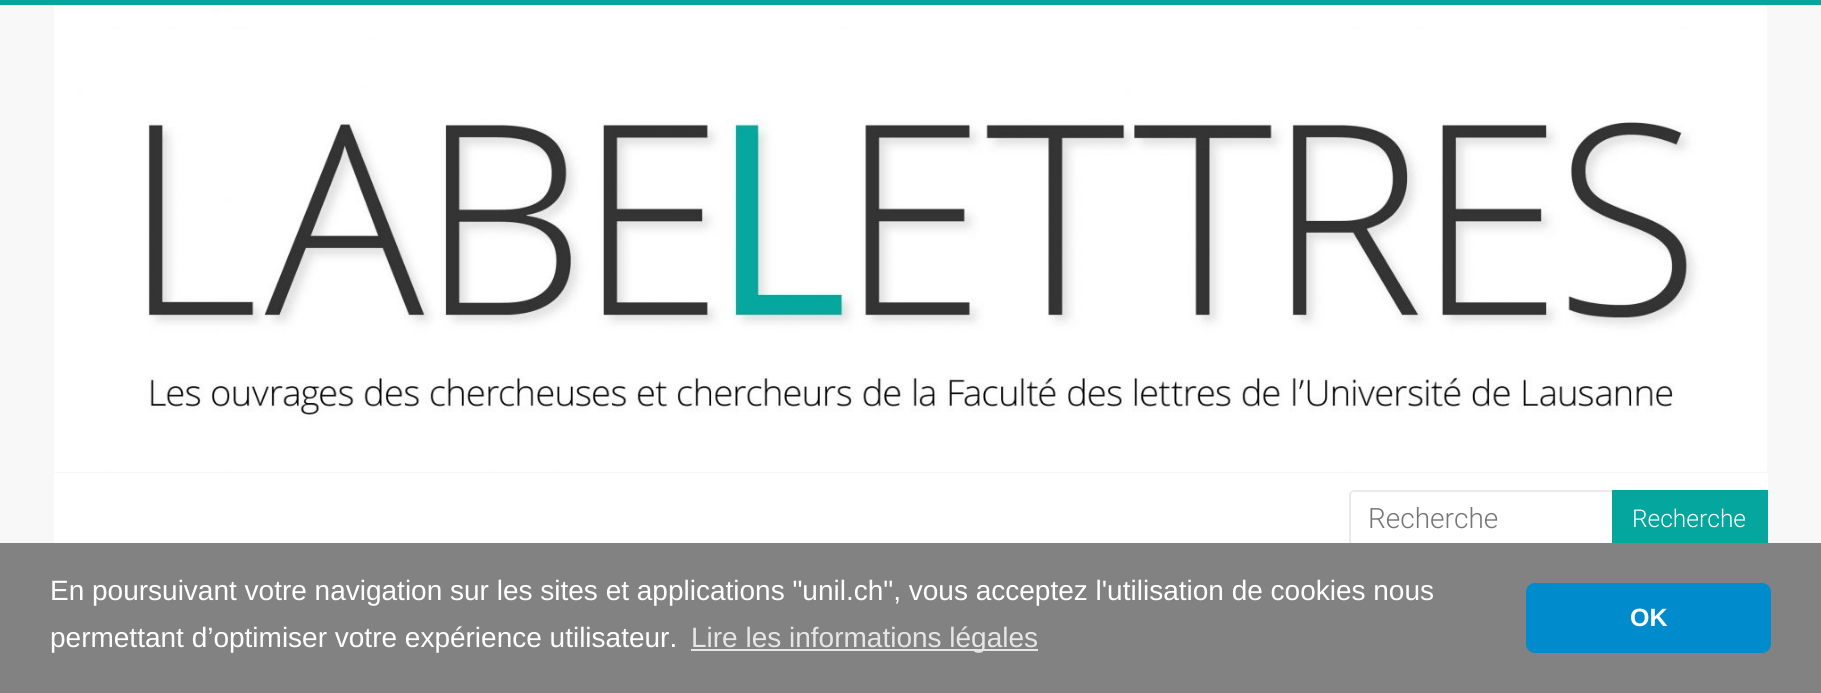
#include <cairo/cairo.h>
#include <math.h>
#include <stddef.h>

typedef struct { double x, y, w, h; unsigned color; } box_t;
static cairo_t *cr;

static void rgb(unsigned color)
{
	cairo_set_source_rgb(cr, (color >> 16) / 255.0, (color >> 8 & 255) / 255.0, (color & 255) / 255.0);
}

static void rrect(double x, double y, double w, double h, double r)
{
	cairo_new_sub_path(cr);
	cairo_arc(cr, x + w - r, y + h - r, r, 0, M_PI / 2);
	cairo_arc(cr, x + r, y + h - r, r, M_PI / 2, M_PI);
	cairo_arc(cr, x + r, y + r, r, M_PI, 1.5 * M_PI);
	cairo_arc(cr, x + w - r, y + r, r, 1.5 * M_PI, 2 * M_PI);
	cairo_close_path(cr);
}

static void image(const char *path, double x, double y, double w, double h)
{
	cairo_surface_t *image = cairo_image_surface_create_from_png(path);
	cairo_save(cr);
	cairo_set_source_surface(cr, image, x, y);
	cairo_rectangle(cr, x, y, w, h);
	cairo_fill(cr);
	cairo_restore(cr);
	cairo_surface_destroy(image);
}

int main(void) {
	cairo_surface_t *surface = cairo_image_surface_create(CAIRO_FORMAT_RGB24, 1821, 693);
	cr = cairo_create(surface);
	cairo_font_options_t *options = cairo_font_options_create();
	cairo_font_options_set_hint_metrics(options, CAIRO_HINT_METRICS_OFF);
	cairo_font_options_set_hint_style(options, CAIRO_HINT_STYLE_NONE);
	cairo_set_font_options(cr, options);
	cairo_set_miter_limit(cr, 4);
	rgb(0x05a69d);
	cairo_paint(cr);
	rgb(0xf8f8f8);
	cairo_rectangle(cr, 0, 5, 1821, 538);
	cairo_fill(cr);
	image("img/1.png", 54, 6, 1713, 466);
	rgb(0xffffff);
	cairo_rectangle(cr, 54, 473, 1714, 70);
	cairo_fill(cr);
	rgb(0xeaeaea);
	cairo_set_fill_rule(cr, CAIRO_FILL_RULE_EVEN_ODD);
	cairo_new_path(cr);
	cairo_move_to(cr, 1354, 490);
	cairo_line_to(cr, 1612, 490);
	cairo_line_to(cr, 1612, 546);
	cairo_line_to(cr, 1354, 546);
	cairo_curve_to(cr, 1352, 546, 1349, 544, 1349, 541);
	cairo_line_to(cr, 1349, 495);
	cairo_curve_to(cr, 1349, 492, 1352, 490, 1354, 490);
	cairo_close_path(cr);
	cairo_move_to(cr, 1354, 492);
	cairo_line_to(cr, 1612, 492);
	cairo_line_to(cr, 1612, 544);
	cairo_line_to(cr, 1354, 544);
	cairo_curve_to(cr, 1353, 544, 1351, 543, 1351, 541);
	cairo_line_to(cr, 1351, 495);
	cairo_curve_to(cr, 1351, 493, 1353, 492, 1354, 492);
	cairo_close_path(cr);
	cairo_fill(cr);
	{
		static const box_t items[] = {
			{1612, 490, 156, 53, 0x05a69d},
			{0, 543, 1821, 150, 0x828282},
			{691, 649, 347, 2, 0xe6e6e6},
		};
		for (size_t i = 0; i < sizeof items / sizeof *items; i++) {
			rgb(items[i].color);
			cairo_rectangle(cr, items[i].x, items[i].y, items[i].w, items[i].h);
			cairo_fill(cr);
		}
	}
	rgb(0x008ccc);
	rrect(1526, 583, 245, 70, 9);
	cairo_fill(cr);
	cairo_select_font_face(cr, "Roboto Light", CAIRO_FONT_SLANT_NORMAL, CAIRO_FONT_WEIGHT_NORMAL);
	cairo_set_font_size(cr, 28);
	rgb(0x757575);
	cairo_move_to(cr, 1368, 528);
	cairo_show_text(cr, "Recherche");
	cairo_set_font_size(cr, 24.5);
	rgb(0xffffff);
	cairo_move_to(cr, 1632, 527);
	cairo_show_text(cr, "Recherche");
	cairo_select_font_face(cr, "Liberation Sans", CAIRO_FONT_SLANT_NORMAL, CAIRO_FONT_WEIGHT_NORMAL);
	cairo_set_font_size(cr, 28);
	cairo_move_to(cr, 50, 600);
	cairo_show_text(cr, "En poursuivant votre navigation sur les sites et applications \"unil.ch\", vous acceptez l'utilisation de cookies nous");
	cairo_move_to(cr, 50, 647);
	cairo_show_text(cr, "permettant d’optimiser votre expérience utilisateur.");
	rgb(0xe6e6e6);
	cairo_move_to(cr, 691, 647);
	cairo_show_text(cr, "Lire les informations légales");
	cairo_select_font_face(cr, "Liberation Sans", CAIRO_FONT_SLANT_NORMAL, CAIRO_FONT_WEIGHT_BOLD);
	cairo_set_font_size(cr, 25);
	rgb(0xffffff);
	cairo_move_to(cr, 1630, 626);
	cairo_show_text(cr, "OK");
	cairo_surface_write_to_png(surface, "page.png");
	cairo_font_options_destroy(options);
	cairo_destroy(cr);
	cairo_surface_destroy(surface);
	return 0;
}
